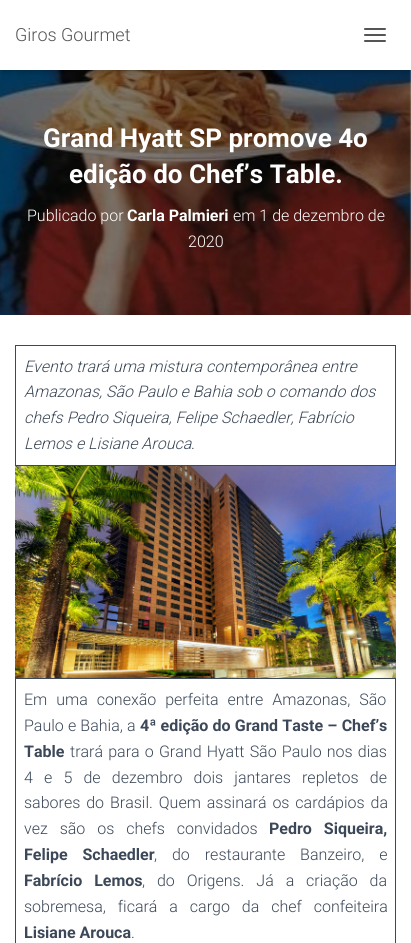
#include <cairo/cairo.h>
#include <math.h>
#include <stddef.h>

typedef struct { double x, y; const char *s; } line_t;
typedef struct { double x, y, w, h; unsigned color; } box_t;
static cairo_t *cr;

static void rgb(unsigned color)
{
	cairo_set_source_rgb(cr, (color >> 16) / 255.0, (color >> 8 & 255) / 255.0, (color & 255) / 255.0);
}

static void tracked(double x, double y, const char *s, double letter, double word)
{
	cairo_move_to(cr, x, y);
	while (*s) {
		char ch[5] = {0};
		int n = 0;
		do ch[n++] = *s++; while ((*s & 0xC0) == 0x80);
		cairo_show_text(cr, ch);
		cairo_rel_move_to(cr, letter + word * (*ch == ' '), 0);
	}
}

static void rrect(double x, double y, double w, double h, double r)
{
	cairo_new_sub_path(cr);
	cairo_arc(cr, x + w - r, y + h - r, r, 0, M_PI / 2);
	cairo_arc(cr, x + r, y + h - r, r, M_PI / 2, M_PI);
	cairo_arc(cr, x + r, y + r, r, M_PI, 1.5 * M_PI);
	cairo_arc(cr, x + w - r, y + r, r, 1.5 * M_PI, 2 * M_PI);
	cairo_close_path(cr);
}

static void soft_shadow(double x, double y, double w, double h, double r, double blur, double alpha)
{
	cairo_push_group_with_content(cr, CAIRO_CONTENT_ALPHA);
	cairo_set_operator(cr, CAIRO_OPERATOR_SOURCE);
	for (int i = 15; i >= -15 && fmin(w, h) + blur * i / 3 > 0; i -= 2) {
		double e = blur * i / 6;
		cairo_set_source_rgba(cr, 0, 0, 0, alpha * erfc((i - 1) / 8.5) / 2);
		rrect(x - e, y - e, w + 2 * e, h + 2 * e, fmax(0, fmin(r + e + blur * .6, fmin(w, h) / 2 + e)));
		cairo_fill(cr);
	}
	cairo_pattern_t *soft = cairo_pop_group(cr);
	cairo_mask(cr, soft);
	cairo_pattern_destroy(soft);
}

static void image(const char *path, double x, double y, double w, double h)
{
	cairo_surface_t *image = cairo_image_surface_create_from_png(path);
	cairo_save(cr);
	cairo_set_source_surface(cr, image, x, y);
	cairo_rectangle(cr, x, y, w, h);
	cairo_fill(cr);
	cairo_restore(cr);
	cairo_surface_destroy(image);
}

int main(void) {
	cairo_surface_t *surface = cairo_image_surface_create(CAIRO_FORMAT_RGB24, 411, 943);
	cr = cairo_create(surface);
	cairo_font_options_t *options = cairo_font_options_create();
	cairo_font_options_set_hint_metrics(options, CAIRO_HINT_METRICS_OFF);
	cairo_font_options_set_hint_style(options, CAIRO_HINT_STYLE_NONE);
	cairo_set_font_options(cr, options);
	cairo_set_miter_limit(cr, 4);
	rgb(0xffffff);
	cairo_paint(cr);
	image("img/1.png", 0, 70, 411, 245);
	rgb(0x000000);
	soft_shadow(2, 6, 407, 66, 0, 2.5, 0.1);
	soft_shadow(0, 1, 411, 70, 0, 5, 0.12);
	soft_shadow(6, 7, 399, 58, 0, 5, 0.42);
	rgb(0xffffff);
	cairo_rectangle(cr, 0, 0, 411, 70);
	cairo_fill(cr);
	rgb(0x555555);
	rrect(364, 28, 22, 2, 1);
	cairo_fill(cr);
	rrect(364, 34, 22, 2, 1);
	cairo_fill(cr);
	rrect(364, 40, 22, 2, 1);
	cairo_fill(cr);
	rgb(0x000000);
	soft_shadow(-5, 316, 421, 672, 0, 15, 0.12);
	{
		static const box_t items[] = {
			{0, 315, 411, 628, 0xffffff},
			{15, 345, 381, 1, 0x3c4858},
			{395, 345, 1, 121, 0x3c4858},
			{15, 465, 381, 1, 0x3c4858},
			{15, 345, 1, 121, 0x3c4858},
		};
		for (size_t i = 0; i < sizeof items / sizeof *items; i++) {
			rgb(items[i].color);
			cairo_rectangle(cr, items[i].x, items[i].y, items[i].w, items[i].h);
			cairo_fill(cr);
		}
	}
	image("img/2.png", 15, 466, 381, 212);
	{
		static const box_t items[] = {
			{15, 678, 381, 1, 0x3c4858},
			{395, 678, 1, 265, 0x3c4858},
			{15, 678, 1, 265, 0x3c4858},
		};
		for (size_t i = 0; i < sizeof items / sizeof *items; i++) {
			rgb(items[i].color);
			cairo_rectangle(cr, items[i].x, items[i].y, items[i].w, items[i].h);
			cairo_fill(cr);
		}
	}
	cairo_select_font_face(cr, "Roboto Light", CAIRO_FONT_SLANT_NORMAL, CAIRO_FONT_WEIGHT_NORMAL);
	cairo_set_font_size(cr, 18);
	rgb(0x555555);
	cairo_move_to(cr, 15, 41);
	cairo_show_text(cr, "Giros Gourmet");
	cairo_select_font_face(cr, "Roboto", CAIRO_FONT_SLANT_NORMAL, CAIRO_FONT_WEIGHT_BOLD);
	cairo_set_font_size(cr, 26);
	rgb(0xffffff);
	cairo_move_to(cr, 43, 147);
	cairo_show_text(cr, "Grand Hyatt SP promove 4o");
	cairo_move_to(cr, 69, 183);
	cairo_show_text(cr, "edição do Chef’s Table.");
	cairo_select_font_face(cr, "Roboto Light", CAIRO_FONT_SLANT_NORMAL, CAIRO_FONT_WEIGHT_NORMAL);
	cairo_set_font_size(cr, 16);
	cairo_move_to(cr, 27, 221);
	cairo_show_text(cr, "Publicado por");
	cairo_select_font_face(cr, "Roboto", CAIRO_FONT_SLANT_NORMAL, CAIRO_FONT_WEIGHT_BOLD);
	cairo_move_to(cr, 127, 221);
	cairo_show_text(cr, "Carla Palmieri");
	cairo_select_font_face(cr, "Roboto Light", CAIRO_FONT_SLANT_NORMAL, CAIRO_FONT_WEIGHT_NORMAL);
	cairo_move_to(cr, 233, 221);
	cairo_show_text(cr, "em 1 de dezembro de");
	cairo_move_to(cr, 188, 247);
	cairo_show_text(cr, "2020");
	cairo_select_font_face(cr, "Roboto Light", CAIRO_FONT_SLANT_ITALIC, CAIRO_FONT_WEIGHT_NORMAL);
	rgb(0x3c4858);
	{
		static const line_t items[] = {
			{24, 372, "Evento trará uma mistura contemporânea entre"},
			{24, 397, "Amazonas, São Paulo e Bahia sob o comando dos"},
			{24, 423, "chefs Pedro Siqueira, Felipe Schaedler, Fabrício"},
			{24, 449, "Lemos e Lisiane Arouca"},
		};
		for (size_t i = 0; i < sizeof items / sizeof *items; i++) {
			cairo_move_to(cr, items[i].x, items[i].y);
			cairo_show_text(cr, items[i].s);
		}
	}
	cairo_select_font_face(cr, "Roboto Light", CAIRO_FONT_SLANT_NORMAL, CAIRO_FONT_WEIGHT_NORMAL);
	cairo_move_to(cr, 191, 449);
	cairo_show_text(cr, ".");
	tracked(24, 705, "Em uma conexão perfeita entre Amazonas, São", 0, 5);
	tracked(24, 731, "Paulo e Bahia, a", 0, 0.25);
	cairo_select_font_face(cr, "Roboto", CAIRO_FONT_SLANT_NORMAL, CAIRO_FONT_WEIGHT_BOLD);
	tracked(140, 731, "4ª edição do Grand Taste – Chef’s", 0, 0.25);
	cairo_move_to(cr, 24, 757);
	cairo_show_text(cr, "Table");
	cairo_select_font_face(cr, "Roboto Light", CAIRO_FONT_SLANT_NORMAL, CAIRO_FONT_WEIGHT_NORMAL);
	tracked(70, 757, "trará para o Grand Hyatt São Paulo nos dias", 0, 1.25);
	tracked(24, 783, "4 e 5 de dezembro dois jantares repletos de", 0, 7.25);
	tracked(24, 808, "sabores do Brasil. Quem assinará os cardápios da", 0, 2);
	tracked(24, 834, "vez são os chefs convidados", 0, 8);
	cairo_select_font_face(cr, "Roboto", CAIRO_FONT_SLANT_NORMAL, CAIRO_FONT_WEIGHT_BOLD);
	tracked(269, 834, "Pedro Siqueira,", 0, 8);
	tracked(24, 860, "Felipe Schaedler", 0, 11);
	cairo_select_font_face(cr, "Roboto Light", CAIRO_FONT_SLANT_NORMAL, CAIRO_FONT_WEIGHT_NORMAL);
	tracked(154, 860, ", do restaurante Banzeiro, e", 0, 11);
	cairo_select_font_face(cr, "Roboto", CAIRO_FONT_SLANT_NORMAL, CAIRO_FONT_WEIGHT_BOLD);
	tracked(24, 886, "Fabrício Lemos", 0, 8);
	cairo_select_font_face(cr, "Roboto Light", CAIRO_FONT_SLANT_NORMAL, CAIRO_FONT_WEIGHT_NORMAL);
	tracked(142, 886, ", do Origens. Já a criação da", 0, 8);
	tracked(24, 912, "sobremesa, ficará a cargo da chef confeiteira", 0, 8);
	cairo_select_font_face(cr, "Roboto", CAIRO_FONT_SLANT_NORMAL, CAIRO_FONT_WEIGHT_BOLD);
	cairo_move_to(cr, 24, 938);
	cairo_show_text(cr, "Lisiane Arouca");
	cairo_select_font_face(cr, "Roboto Light", CAIRO_FONT_SLANT_NORMAL, CAIRO_FONT_WEIGHT_NORMAL);
	cairo_move_to(cr, 131, 938);
	cairo_show_text(cr, ".");
	cairo_surface_write_to_png(surface, "page.png");
	cairo_font_options_destroy(options);
	cairo_destroy(cr);
	cairo_surface_destroy(surface);
	return 0;
}
